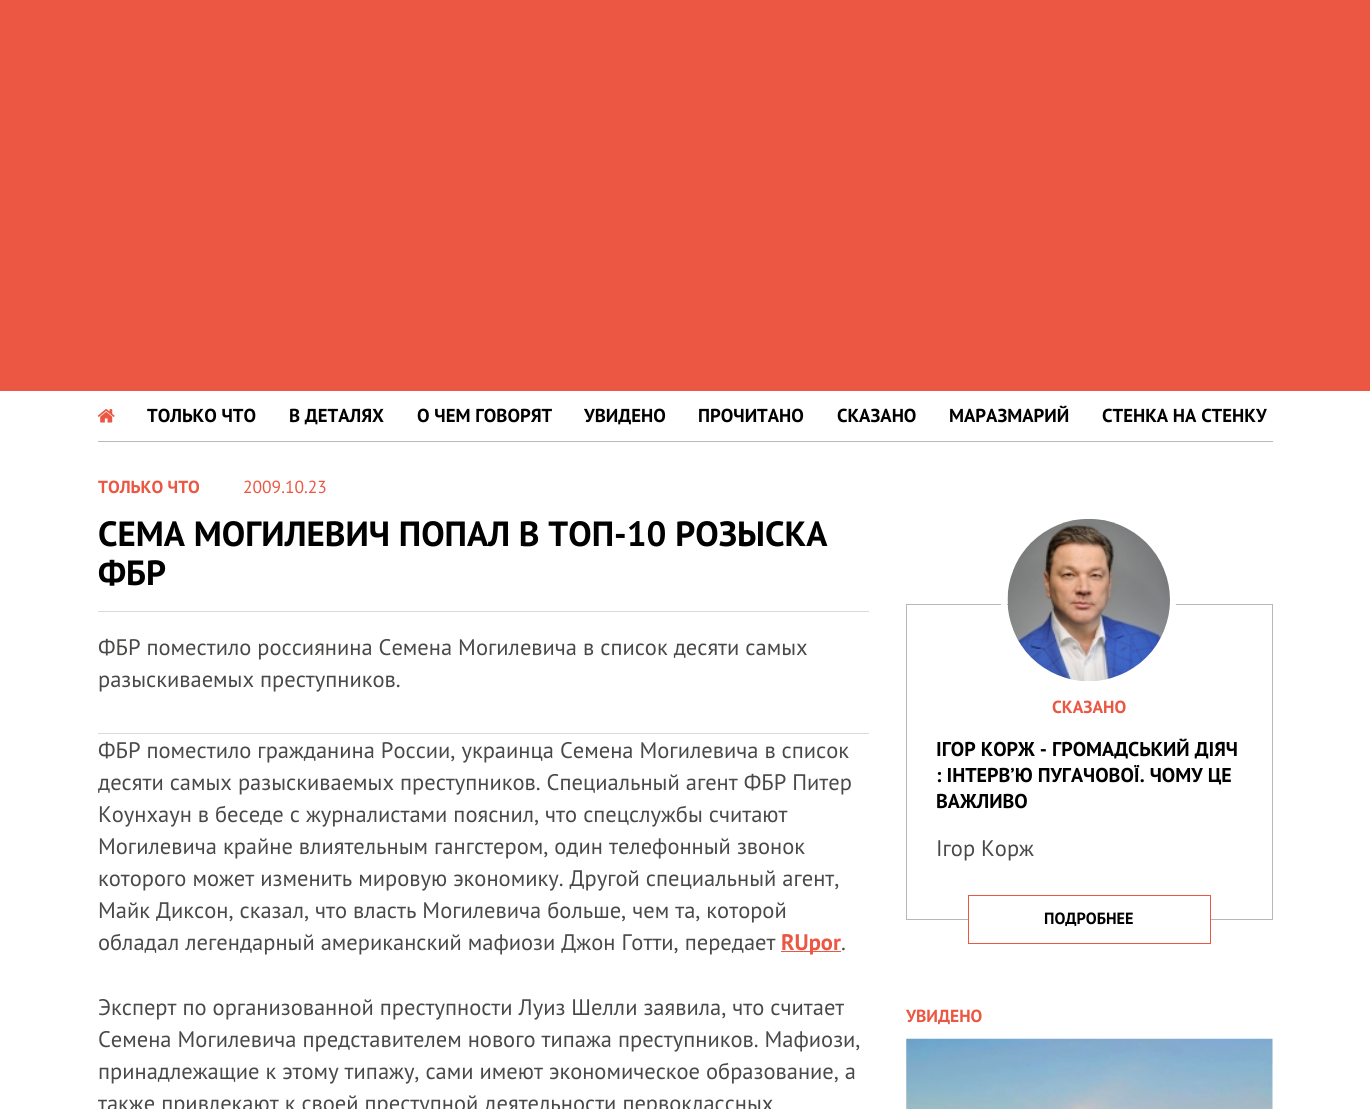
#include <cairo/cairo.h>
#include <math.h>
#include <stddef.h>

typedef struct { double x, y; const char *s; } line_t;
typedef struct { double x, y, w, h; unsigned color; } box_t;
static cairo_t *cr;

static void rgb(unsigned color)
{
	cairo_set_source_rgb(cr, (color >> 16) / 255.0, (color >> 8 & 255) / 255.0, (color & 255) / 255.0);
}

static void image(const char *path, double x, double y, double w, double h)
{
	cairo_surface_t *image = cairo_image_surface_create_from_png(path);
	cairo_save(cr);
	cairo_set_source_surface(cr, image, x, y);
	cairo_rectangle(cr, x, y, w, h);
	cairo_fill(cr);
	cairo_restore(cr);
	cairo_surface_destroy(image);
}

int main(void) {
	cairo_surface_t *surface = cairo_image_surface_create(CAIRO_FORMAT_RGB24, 1370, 1109);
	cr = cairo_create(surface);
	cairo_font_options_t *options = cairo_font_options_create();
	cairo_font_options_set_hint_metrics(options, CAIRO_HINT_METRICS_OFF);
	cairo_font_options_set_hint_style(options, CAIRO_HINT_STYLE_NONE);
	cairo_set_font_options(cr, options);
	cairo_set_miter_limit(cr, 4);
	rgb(0xffffff);
	cairo_paint(cr);
	rgb(0xeb5743);
	cairo_rectangle(cr, 0, 0, 1370, 391);
	cairo_fill(cr);
	rgb(0xb9babb);
	cairo_rectangle(cr, 98, 441, 1175, 1);
	cairo_fill(cr);
	image("img/1.png", 97, 409, 18, 14);
	{
		static const box_t items[] = {
			{98, 611, 771, 1, 0xd9dada},
			{98, 733, 771, 1, 0xd9dada},
			{781, 951, 60, 1, 0xeb5743},
		};
		for (size_t i = 0; i < sizeof items / sizeof *items; i++) {
			rgb(items[i].color);
			cairo_rectangle(cr, items[i].x, items[i].y, items[i].w, items[i].h);
			cairo_fill(cr);
		}
	}
	cairo_rectangle(cr, 906.5, 604.5, 366, 315);
	rgb(0xb7b7b7);
	cairo_set_line_width(cr, 1);
	cairo_stroke(cr);
	cairo_arc(cr, 1088.5, 600.5, 84.5, 0, 2 * M_PI);
	rgb(0xffffff);
	cairo_set_line_width(cr, 6);
	cairo_stroke(cr);
	image("img/2.png", 1007, 518, 163, 163);
	cairo_rectangle(cr, 969, 919, 241, 1);
	cairo_fill(cr);
	cairo_rectangle(cr, 968.5, 895.5, 242, 48);
	rgb(0xeb5743);
	cairo_set_line_width(cr, 1);
	cairo_stroke(cr);
	image("img/3.png", 906, 1038, 367, 71);
	cairo_select_font_face(cr, "PT Sans", CAIRO_FONT_SLANT_NORMAL, CAIRO_FONT_WEIGHT_BOLD);
	cairo_set_font_size(cr, 18.75);
	rgb(0x000000);
	{
		static const line_t items[] = {
			{147, 422, "ТОЛЬКО ЧТО"},
			{289, 422, "В ДЕТАЛЯХ"},
			{417, 422, "О ЧЕМ ГОВОРЯТ"},
			{584, 422, "УВИДЕНО"},
			{698, 422, "ПРОЧИТАНО"},
			{837, 422, "СКАЗАНО"},
			{949, 422, "МАРАЗМАРИЙ"},
			{1102, 422, "СТЕНКА НА СТЕНКУ"},
		};
		for (size_t i = 0; i < sizeof items / sizeof *items; i++) {
			cairo_move_to(cr, items[i].x, items[i].y);
			cairo_show_text(cr, items[i].s);
		}
	}
	cairo_save(cr);
	cairo_rectangle(cr, 98, 479, 771, 114);
	cairo_clip(cr);
	cairo_set_font_size(cr, 17.5);
	rgb(0xeb5743);
	cairo_move_to(cr, 98, 493);
	cairo_show_text(cr, "ТОЛЬКО ЧТО");
	cairo_restore(cr);
	cairo_select_font_face(cr, "PT Sans", CAIRO_FONT_SLANT_NORMAL, CAIRO_FONT_WEIGHT_NORMAL);
	cairo_set_font_size(cr, 17.5);
	rgb(0xeb5743);
	cairo_move_to(cr, 243, 493);
	cairo_show_text(cr, "2009.10.23");
	cairo_select_font_face(cr, "PT Sans", CAIRO_FONT_SLANT_NORMAL, CAIRO_FONT_WEIGHT_BOLD);
	cairo_set_font_size(cr, 35);
	rgb(0x000000);
	cairo_move_to(cr, 98, 546);
	cairo_show_text(cr, "СЕМА МОГИЛЕВИЧ ПОПАЛ В ТОП-10 РОЗЫСКА");
	cairo_move_to(cr, 98, 585);
	cairo_show_text(cr, "ФБР");
	cairo_select_font_face(cr, "PT Sans", CAIRO_FONT_SLANT_NORMAL, CAIRO_FONT_WEIGHT_NORMAL);
	cairo_set_font_size(cr, 22.5);
	rgb(0x494948);
	{
		static const line_t items[] = {
			{98, 655, "ФБР поместило россиянина Семена Могилевича в список десяти самых"},
			{98, 687, "разыскиваемых преступников."},
			{98, 758, "ФБР поместило гражданина России, украинца Семена Могилевича в список"},
			{98, 790, "десяти самых разыскиваемых преступников. Специальный агент ФБР Питер"},
			{98, 822, "Коунхаун в беседе с журналистами пояснил, что спецслужбы считают"},
			{98, 854, "Могилевича крайне влиятельным гангстером, один телефонный звонок"},
			{98, 886, "которого может изменить мировую экономику. Другой специальный агент,"},
			{98, 918, "Майк Диксон, сказал, что власть Могилевича больше, чем та, которой"},
			{98, 950, "обладал легендарный американский мафиози Джон Готти, передает"},
		};
		for (size_t i = 0; i < sizeof items / sizeof *items; i++) {
			cairo_move_to(cr, items[i].x, items[i].y);
			cairo_show_text(cr, items[i].s);
		}
	}
	cairo_select_font_face(cr, "PT Sans", CAIRO_FONT_SLANT_NORMAL, CAIRO_FONT_WEIGHT_BOLD);
	rgb(0xeb5743);
	cairo_move_to(cr, 781, 950);
	cairo_show_text(cr, "RUpor");
	cairo_select_font_face(cr, "PT Sans", CAIRO_FONT_SLANT_NORMAL, CAIRO_FONT_WEIGHT_NORMAL);
	rgb(0x494948);
	{
		static const line_t items[] = {
			{841, 950, "."},
			{98, 1015, "Эксперт по организованной преступности Луиз Шелли заявила, что считает"},
			{98, 1047, "Семена Могилевича представителем нового типажа преступников. Мафиози,"},
			{98, 1079, "принадлежащие к этому типажу, сами имеют экономическое образование, а"},
			{98, 1111, "также привлекают к своей преступной деятельности первоклассных"},
		};
		for (size_t i = 0; i < sizeof items / sizeof *items; i++) {
			cairo_move_to(cr, items[i].x, items[i].y);
			cairo_show_text(cr, items[i].s);
		}
	}
	cairo_select_font_face(cr, "PT Sans", CAIRO_FONT_SLANT_NORMAL, CAIRO_FONT_WEIGHT_BOLD);
	cairo_set_font_size(cr, 17.5);
	rgb(0xeb5743);
	cairo_move_to(cr, 1052, 713);
	cairo_show_text(cr, "СКАЗАНО");
	cairo_set_font_size(cr, 20);
	rgb(0x000000);
	{
		static const line_t items[] = {
			{936, 756, "ІГОР КОРЖ - ГРОМАДСЬКИЙ ДІЯЧ"},
			{936, 782, ": ІНТЕРВʼЮ ПУГАЧОВОЇ. ЧОМУ ЦЕ"},
			{936, 808, "ВАЖЛИВО"},
		};
		for (size_t i = 0; i < sizeof items / sizeof *items; i++) {
			cairo_move_to(cr, items[i].x, items[i].y);
			cairo_show_text(cr, items[i].s);
		}
	}
	cairo_select_font_face(cr, "PT Sans", CAIRO_FONT_SLANT_NORMAL, CAIRO_FONT_WEIGHT_NORMAL);
	cairo_set_font_size(cr, 22.5);
	rgb(0x494948);
	cairo_move_to(cr, 936, 856);
	cairo_show_text(cr, "Ігор Корж");
	cairo_select_font_face(cr, "PT Sans", CAIRO_FONT_SLANT_NORMAL, CAIRO_FONT_WEIGHT_BOLD);
	cairo_set_font_size(cr, 16.25);
	rgb(0x000000);
	cairo_move_to(cr, 1044, 924);
	cairo_show_text(cr, "ПОДРОБНЕЕ");
	cairo_set_font_size(cr, 17.5);
	rgb(0xeb5743);
	cairo_move_to(cr, 906, 1022);
	cairo_show_text(cr, "УВИДЕНО");
	cairo_surface_write_to_png(surface, "page.png");
	cairo_font_options_destroy(options);
	cairo_destroy(cr);
	cairo_surface_destroy(surface);
	return 0;
}
